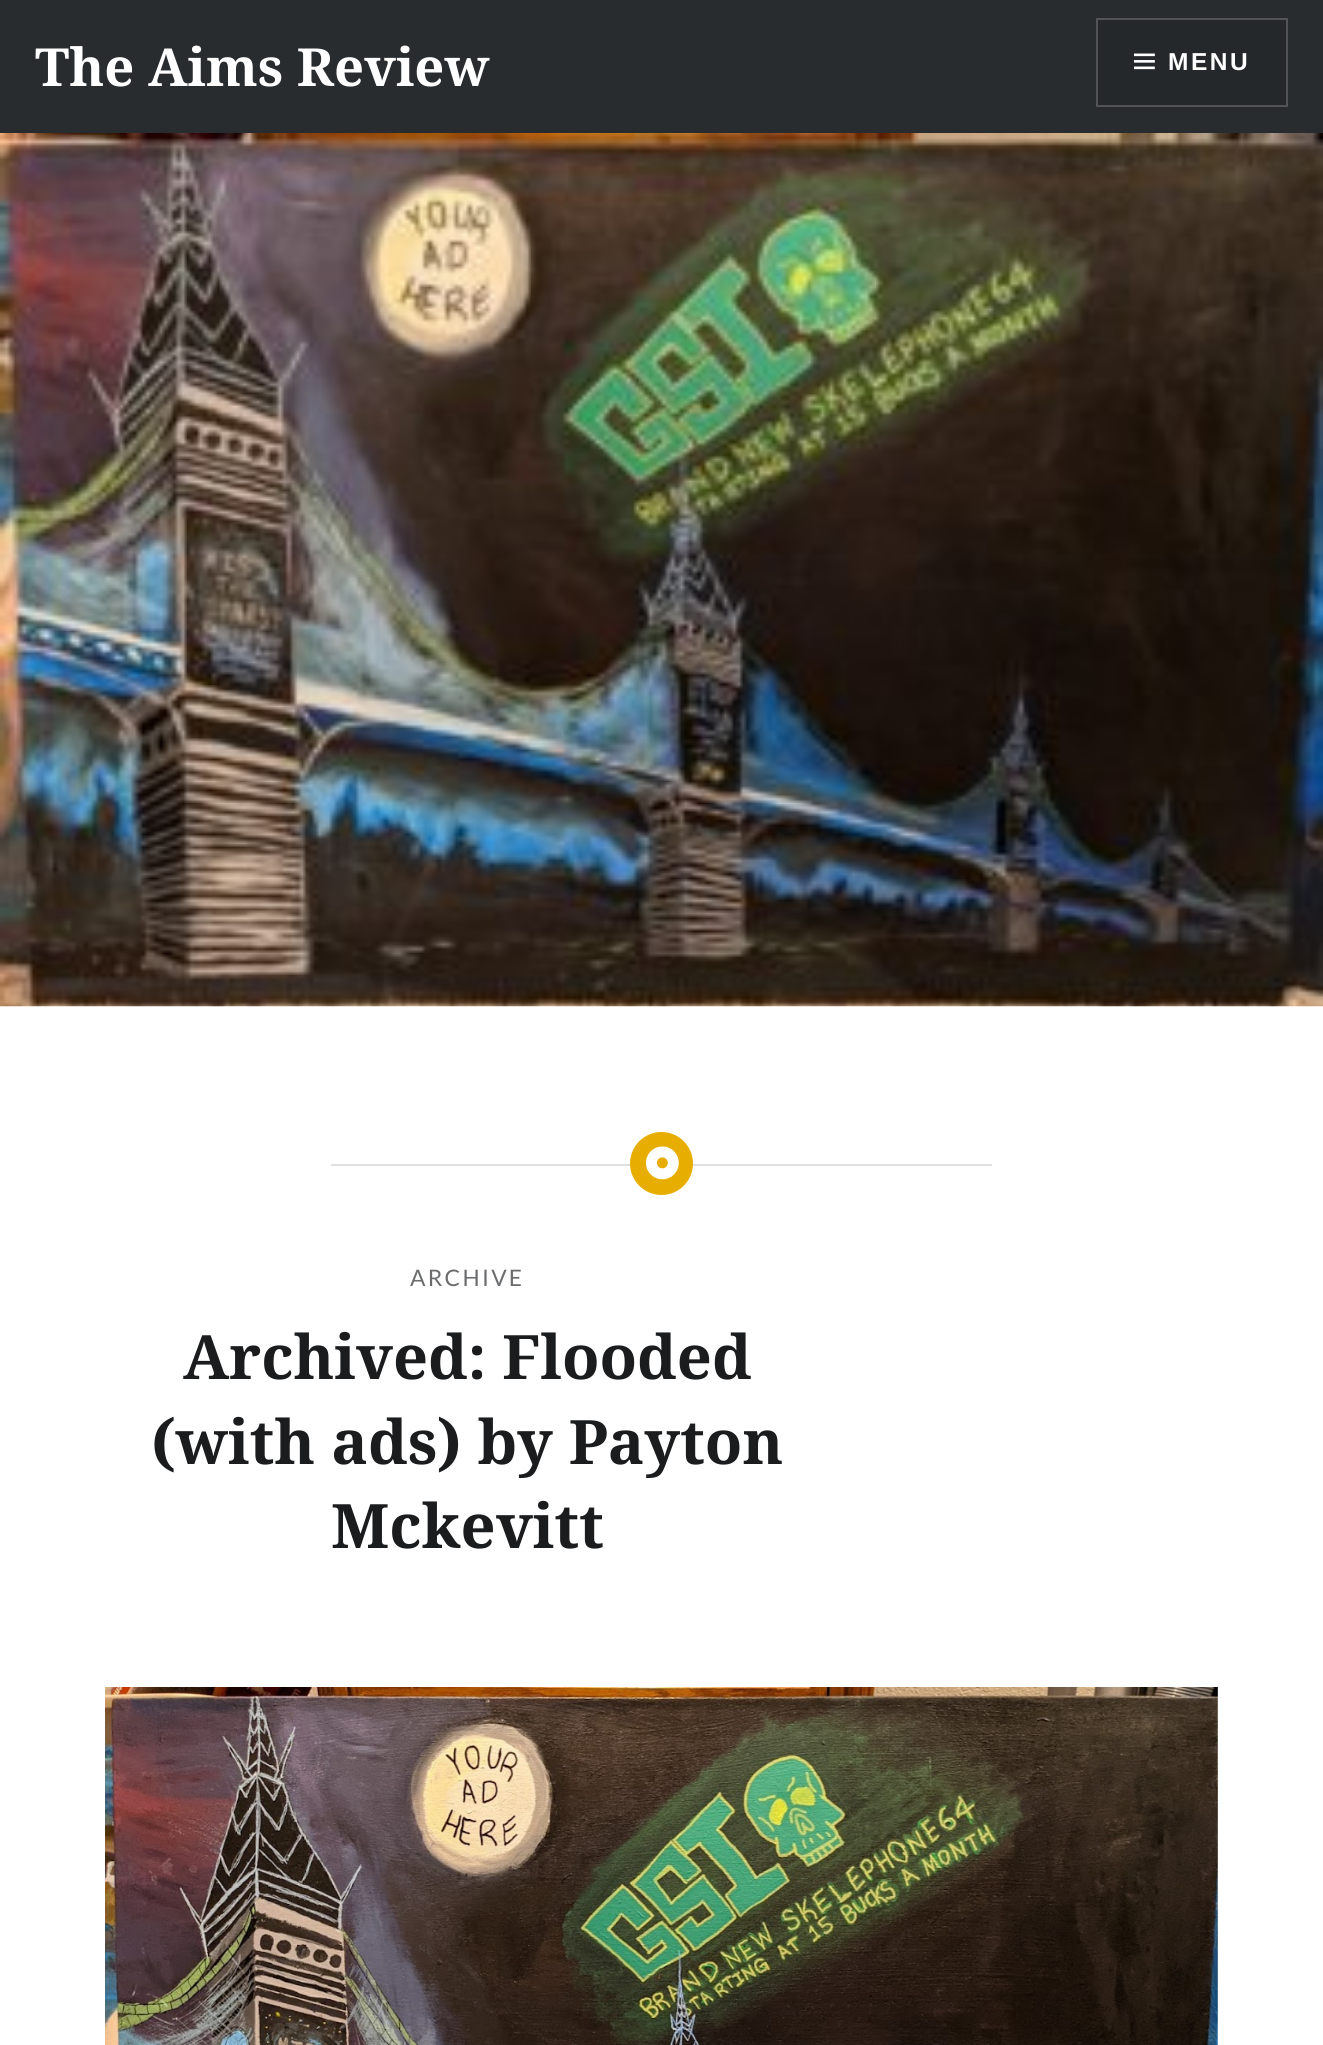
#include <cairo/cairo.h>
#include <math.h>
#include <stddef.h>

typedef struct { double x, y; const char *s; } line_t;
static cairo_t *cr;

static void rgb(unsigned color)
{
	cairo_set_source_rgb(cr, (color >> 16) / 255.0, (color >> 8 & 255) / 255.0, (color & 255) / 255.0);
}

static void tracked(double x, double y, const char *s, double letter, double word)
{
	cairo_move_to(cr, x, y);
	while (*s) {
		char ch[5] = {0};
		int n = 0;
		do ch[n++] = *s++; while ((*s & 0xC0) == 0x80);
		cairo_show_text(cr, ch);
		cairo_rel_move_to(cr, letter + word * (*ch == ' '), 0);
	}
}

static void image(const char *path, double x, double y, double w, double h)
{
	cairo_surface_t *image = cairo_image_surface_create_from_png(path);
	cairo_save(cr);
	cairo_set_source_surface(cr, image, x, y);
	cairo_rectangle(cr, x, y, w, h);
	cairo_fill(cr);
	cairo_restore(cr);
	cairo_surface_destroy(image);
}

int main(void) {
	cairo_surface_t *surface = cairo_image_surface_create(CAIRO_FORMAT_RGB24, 1323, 2045);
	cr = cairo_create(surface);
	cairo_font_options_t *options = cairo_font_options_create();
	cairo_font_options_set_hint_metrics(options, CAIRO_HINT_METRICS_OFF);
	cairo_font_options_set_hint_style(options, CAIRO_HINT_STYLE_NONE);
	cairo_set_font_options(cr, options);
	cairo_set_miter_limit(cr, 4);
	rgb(0xffffff);
	cairo_paint(cr);
	rgb(0x292c2f);
	cairo_rectangle(cr, 0, 0, 1323, 133);
	cairo_fill(cr);
	rgb(0x25282a);
	cairo_rectangle(cr, 1097, 19, 190, 87);
	cairo_fill_preserve(cr);
	rgb(0x515355);
	cairo_stroke(cr);
	image("img/1.png", 1134, 53, 21, 17);
	image("img/2.png", 0, 133, 1323, 874);
	rgb(0xe0e0e0);
	cairo_rectangle(cr, 331, 1164, 661, 2);
	cairo_fill(cr);
	rgb(0xe7ae01);
	cairo_arc(cr, 661.5, 1163.5, 31.5, 0, 2 * M_PI);
	cairo_fill(cr);
	image("img/3.png", 646, 1146, 33, 34);
	image("img/4.png", 105, 1687, 1113, 358);
	cairo_select_font_face(cr, "Noto Serif", CAIRO_FONT_SLANT_NORMAL, CAIRO_FONT_WEIGHT_BOLD);
	cairo_set_font_size(cr, 52.5);
	rgb(0xffffff);
	cairo_move_to(cr, 35, 86);
	cairo_show_text(cr, "The Aims Review");
	cairo_select_font_face(cr, "Liberation Sans", CAIRO_FONT_SLANT_NORMAL, CAIRO_FONT_WEIGHT_BOLD);
	cairo_set_font_size(cr, 24.5);
	tracked(1168, 70, "MENU", 2.5, 0);
	cairo_select_font_face(cr, "Lato", CAIRO_FONT_SLANT_NORMAL, CAIRO_FONT_WEIGHT_NORMAL);
	cairo_set_font_size(cr, 22.75);
	rgb(0x6a6c6e);
	tracked(410, 1286, "ARCHIVE", 2.25, 0);
	cairo_select_font_face(cr, "Noto Serif", CAIRO_FONT_SLANT_NORMAL, CAIRO_FONT_WEIGHT_BOLD);
	cairo_set_font_size(cr, 61.25);
	rgb(0x1a1c1e);
	{
		static const line_t items[] = {
			{183, 1379, "Archived: Flooded"},
			{151, 1464, "(with ads) by Payton"},
			{331, 1548, "Mckevitt"},
		};
		for (size_t i = 0; i < sizeof items / sizeof *items; i++) {
			cairo_move_to(cr, items[i].x, items[i].y);
			cairo_show_text(cr, items[i].s);
		}
	}
	cairo_surface_write_to_png(surface, "page.png");
	cairo_font_options_destroy(options);
	cairo_destroy(cr);
	cairo_surface_destroy(surface);
	return 0;
}
